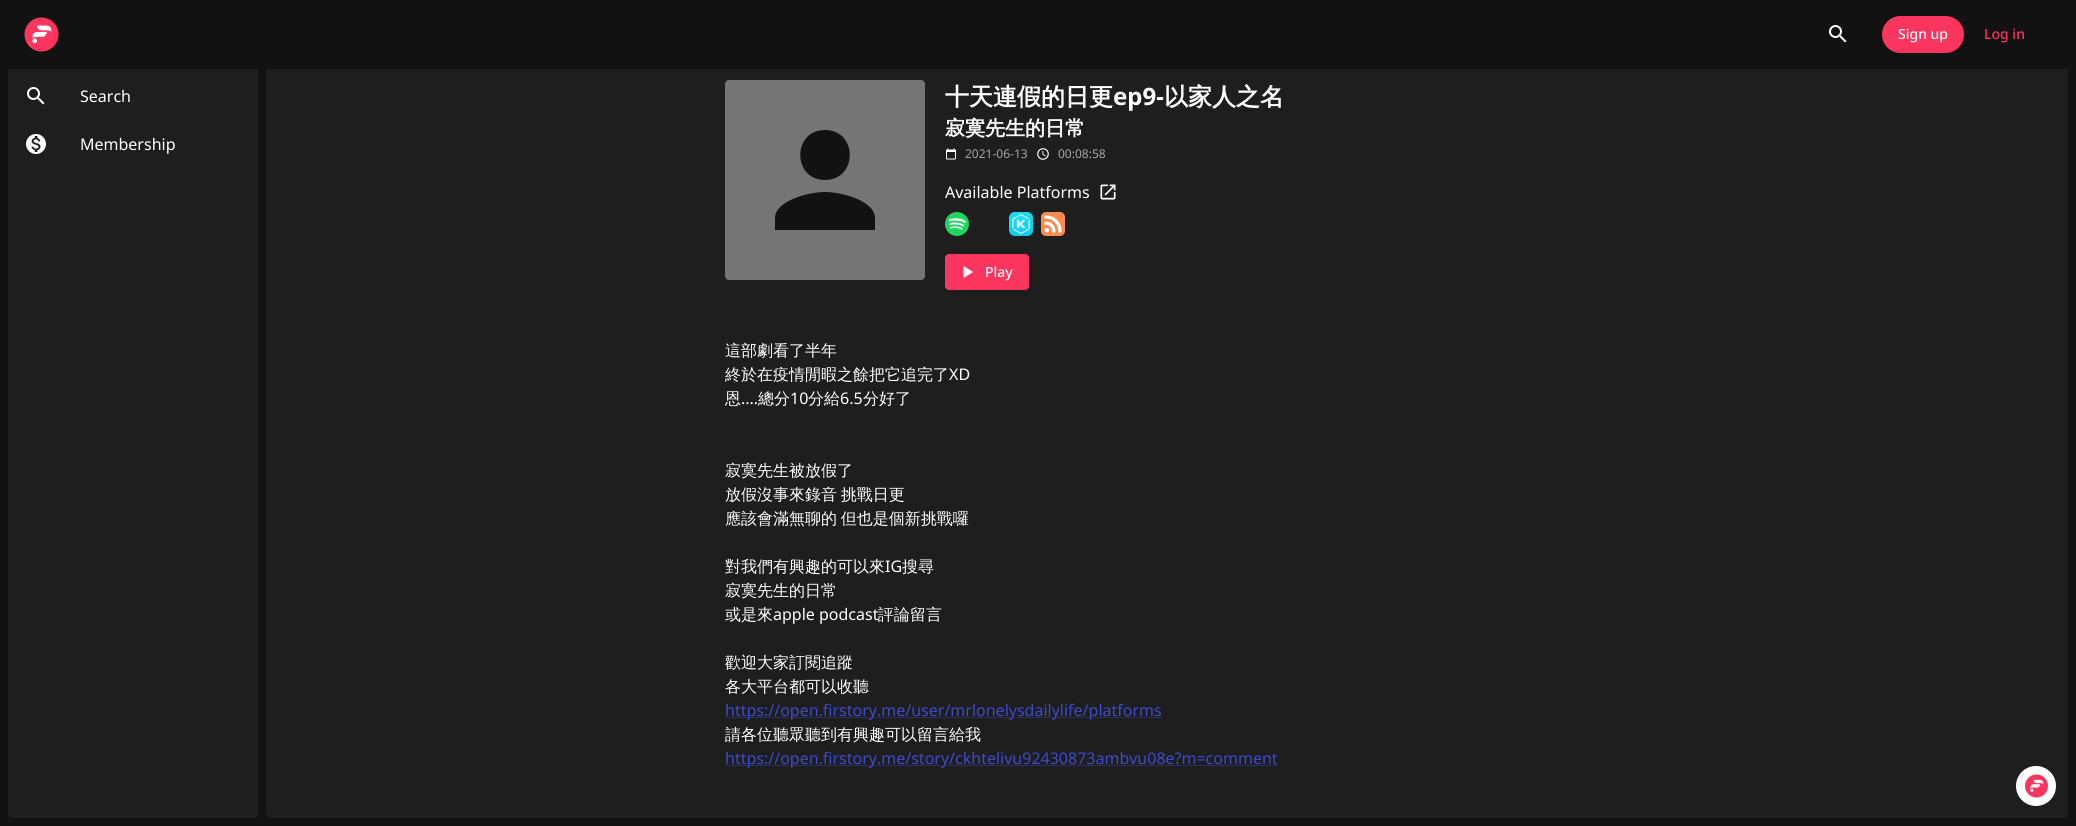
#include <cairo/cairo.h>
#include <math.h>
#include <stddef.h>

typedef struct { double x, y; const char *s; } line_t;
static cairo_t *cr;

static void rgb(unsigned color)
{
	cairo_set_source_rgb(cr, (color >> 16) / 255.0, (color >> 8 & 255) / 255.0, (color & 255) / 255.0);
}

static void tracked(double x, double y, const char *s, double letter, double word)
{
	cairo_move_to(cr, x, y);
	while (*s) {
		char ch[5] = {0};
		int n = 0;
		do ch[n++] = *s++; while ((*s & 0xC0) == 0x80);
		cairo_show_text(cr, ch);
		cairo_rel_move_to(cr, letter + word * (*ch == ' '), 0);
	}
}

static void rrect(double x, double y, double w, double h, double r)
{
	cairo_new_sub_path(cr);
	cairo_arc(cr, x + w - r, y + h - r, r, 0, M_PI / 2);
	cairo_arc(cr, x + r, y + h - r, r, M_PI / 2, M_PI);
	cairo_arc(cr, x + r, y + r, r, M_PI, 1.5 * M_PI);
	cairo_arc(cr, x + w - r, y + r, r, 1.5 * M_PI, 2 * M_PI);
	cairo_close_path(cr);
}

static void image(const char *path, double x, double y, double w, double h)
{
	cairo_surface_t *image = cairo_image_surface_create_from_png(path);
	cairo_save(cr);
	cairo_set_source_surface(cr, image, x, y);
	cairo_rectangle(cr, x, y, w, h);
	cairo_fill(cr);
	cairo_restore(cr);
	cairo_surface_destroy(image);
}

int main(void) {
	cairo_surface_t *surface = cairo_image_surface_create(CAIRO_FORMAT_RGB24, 2076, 826);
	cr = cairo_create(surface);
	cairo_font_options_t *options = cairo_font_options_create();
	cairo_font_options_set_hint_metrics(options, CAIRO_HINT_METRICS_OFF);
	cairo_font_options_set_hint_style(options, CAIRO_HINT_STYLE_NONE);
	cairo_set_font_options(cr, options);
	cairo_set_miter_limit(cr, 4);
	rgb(0x121212);
	cairo_paint(cr);
	rgb(0x1e1e1e);
	rrect(8, 64, 250, 754, 4);
	cairo_fill(cr);
	rrect(266, 64, 1802, 754, 4);
	cairo_fill(cr);
	rgb(0x121212);
	cairo_rectangle(cr, 8, 64, 2060, 5);
	cairo_fill(cr);
	image("img/1.png", 24, 17, 35, 35);
	image("img/2.png", 1829, 25, 18, 18);
	rgb(0xfb355e);
	rrect(1882, 16, 82, 37, 18.5);
	cairo_fill(cr);
	image("img/3.png", 27, 87, 18, 18);
	image("img/4.png", 26, 134, 20, 20);
	rgb(0x757575);
	rrect(725, 80, 200, 200, 4);
	cairo_fill(cr);
	rgb(0x121212);
	cairo_new_path(cr);
	cairo_move_to(cr, 825, 180);
	cairo_curve_to(cr, 858, 180, 858, 130, 825, 130);
	cairo_curve_to(cr, 792, 130, 792, 180, 825, 180);
	cairo_close_path(cr);
	cairo_move_to(cr, 825, 192);
	cairo_curve_to(cr, 808, 192, 775, 201, 775, 218);
	cairo_line_to(cr, 775, 230);
	cairo_line_to(cr, 875, 230);
	cairo_line_to(cr, 875, 218);
	cairo_curve_to(cr, 875, 201, 842, 192, 825, 192);
	cairo_close_path(cr);
	cairo_fill(cr);
	image("img/5.png", 946, 148, 10, 12);
	image("img/6.png", 1037, 148, 12, 12);
	image("img/7.png", 1100, 184, 16, 16);
	image("img/8.png", 945, 212, 24, 24);
	image("img/9.png", 1009, 212, 24, 24);
	image("img/10.png", 1041, 212, 24, 24);
	rgb(0xfb355e);
	rrect(945, 254, 84, 36, 4);
	cairo_fill(cr);
	rgb(0xffffff);
	cairo_new_path(cr);
	cairo_move_to(cr, 963.5, 266);
	cairo_line_to(cr, 963.5, 278);
	cairo_line_to(cr, 973, 272);
	cairo_close_path(cr);
	cairo_fill(cr);
	rgb(0x2a3063);
	cairo_rectangle(cr, 725, 717, 437, 1);
	cairo_fill(cr);
	cairo_rectangle(cr, 725, 765, 553, 1);
	cairo_fill(cr);
	rgb(0xffffff);
	cairo_arc(cr, 2036, 786, 20, 0, 2 * M_PI);
	cairo_fill(cr);
	image("img/11.png", 2025, 774, 23, 24);
	cairo_select_font_face(cr, "Noto Sans Medium", CAIRO_FONT_SLANT_NORMAL, CAIRO_FONT_WEIGHT_NORMAL);
	cairo_set_font_size(cr, 14);
	cairo_move_to(cr, 1898, 39);
	cairo_show_text(cr, "Sign up");
	rgb(0xfb355e);
	cairo_move_to(cr, 1984, 39);
	cairo_show_text(cr, "Log in");
	cairo_select_font_face(cr, "Noto Sans", CAIRO_FONT_SLANT_NORMAL, CAIRO_FONT_WEIGHT_NORMAL);
	cairo_set_font_size(cr, 16);
	rgb(0xffffff);
	cairo_move_to(cr, 80, 102);
	cairo_show_text(cr, "Search");
	cairo_move_to(cr, 80, 150);
	cairo_show_text(cr, "Membership");
	cairo_select_font_face(cr, "WenQuanYi Zen Hei", CAIRO_FONT_SLANT_NORMAL, CAIRO_FONT_WEIGHT_BOLD);
	cairo_set_font_size(cr, 24);
	cairo_move_to(cr, 945, 105);
	cairo_show_text(cr, "十天連假的日更");
	cairo_select_font_face(cr, "Noto Sans", CAIRO_FONT_SLANT_NORMAL, CAIRO_FONT_WEIGHT_BOLD);
	cairo_move_to(cr, 1113, 105);
	cairo_show_text(cr, "ep9-");
	cairo_select_font_face(cr, "WenQuanYi Zen Hei", CAIRO_FONT_SLANT_NORMAL, CAIRO_FONT_WEIGHT_BOLD);
	cairo_move_to(cr, 1164, 105);
	cairo_show_text(cr, "以家人之名");
	cairo_set_font_size(cr, 20);
	cairo_move_to(cr, 945, 135);
	cairo_show_text(cr, "寂寞先生的日常");
	cairo_select_font_face(cr, "Noto Sans", CAIRO_FONT_SLANT_NORMAL, CAIRO_FONT_WEIGHT_NORMAL);
	cairo_set_font_size(cr, 12);
	rgb(0xa5a5a5);
	cairo_move_to(cr, 965, 158);
	cairo_show_text(cr, "2021-06-13");
	cairo_move_to(cr, 1058, 158);
	cairo_show_text(cr, "00:08:58");
	cairo_set_font_size(cr, 16);
	rgb(0xffffff);
	cairo_move_to(cr, 945, 198);
	cairo_show_text(cr, "Available Platforms");
	cairo_select_font_face(cr, "Noto Sans Medium", CAIRO_FONT_SLANT_NORMAL, CAIRO_FONT_WEIGHT_NORMAL);
	cairo_set_font_size(cr, 14);
	cairo_move_to(cr, 985, 277);
	cairo_show_text(cr, "Play");
	cairo_select_font_face(cr, "WenQuanYi Zen Hei Medium", CAIRO_FONT_SLANT_NORMAL, CAIRO_FONT_WEIGHT_NORMAL);
	cairo_set_font_size(cr, 16);
	cairo_move_to(cr, 725, 356);
	cairo_show_text(cr, "這部劇看了半年");
	cairo_move_to(cr, 725, 380);
	cairo_show_text(cr, "終於在疫情閒暇之餘把它追完了");
	cairo_select_font_face(cr, "Noto Sans", CAIRO_FONT_SLANT_NORMAL, CAIRO_FONT_WEIGHT_NORMAL);
	cairo_move_to(cr, 949, 380);
	cairo_show_text(cr, "XD");
	cairo_select_font_face(cr, "WenQuanYi Zen Hei Medium", CAIRO_FONT_SLANT_NORMAL, CAIRO_FONT_WEIGHT_NORMAL);
	cairo_move_to(cr, 725, 404);
	cairo_show_text(cr, "恩");
	cairo_select_font_face(cr, "Noto Sans", CAIRO_FONT_SLANT_NORMAL, CAIRO_FONT_WEIGHT_NORMAL);
	cairo_move_to(cr, 741, 404);
	cairo_show_text(cr, "....");
	cairo_select_font_face(cr, "WenQuanYi Zen Hei Medium", CAIRO_FONT_SLANT_NORMAL, CAIRO_FONT_WEIGHT_NORMAL);
	cairo_move_to(cr, 758, 404);
	cairo_show_text(cr, "總分");
	cairo_select_font_face(cr, "Noto Sans", CAIRO_FONT_SLANT_NORMAL, CAIRO_FONT_WEIGHT_NORMAL);
	cairo_move_to(cr, 790, 404);
	cairo_show_text(cr, "10");
	cairo_select_font_face(cr, "WenQuanYi Zen Hei Medium", CAIRO_FONT_SLANT_NORMAL, CAIRO_FONT_WEIGHT_NORMAL);
	cairo_move_to(cr, 808, 404);
	cairo_show_text(cr, "分給");
	cairo_select_font_face(cr, "Noto Sans", CAIRO_FONT_SLANT_NORMAL, CAIRO_FONT_WEIGHT_NORMAL);
	cairo_move_to(cr, 840, 404);
	cairo_show_text(cr, "6.5");
	cairo_select_font_face(cr, "WenQuanYi Zen Hei Medium", CAIRO_FONT_SLANT_NORMAL, CAIRO_FONT_WEIGHT_NORMAL);
	cairo_move_to(cr, 863, 404);
	cairo_show_text(cr, "分好了");
	cairo_move_to(cr, 725, 476);
	cairo_show_text(cr, "寂寞先生被放假了");
	tracked(725, 500, "放假沒事來錄音 挑戰日更", 0, -1);
	tracked(725, 524, "應該會滿無聊的 但也是個新挑戰囉", 0, -1);
	cairo_move_to(cr, 725, 572);
	cairo_show_text(cr, "對我們有興趣的可以來");
	cairo_select_font_face(cr, "Noto Sans", CAIRO_FONT_SLANT_NORMAL, CAIRO_FONT_WEIGHT_NORMAL);
	cairo_move_to(cr, 885, 572);
	cairo_show_text(cr, "IG");
	cairo_select_font_face(cr, "WenQuanYi Zen Hei Medium", CAIRO_FONT_SLANT_NORMAL, CAIRO_FONT_WEIGHT_NORMAL);
	{
		static const line_t items[] = {
			{902, 572, "搜尋"},
			{725, 596, "寂寞先生的日常"},
			{725, 620, "或是來"},
		};
		for (size_t i = 0; i < sizeof items / sizeof *items; i++) {
			cairo_move_to(cr, items[i].x, items[i].y);
			cairo_show_text(cr, items[i].s);
		}
	}
	cairo_select_font_face(cr, "Noto Sans", CAIRO_FONT_SLANT_NORMAL, CAIRO_FONT_WEIGHT_NORMAL);
	cairo_move_to(cr, 773, 620);
	cairo_show_text(cr, "apple podcast");
	cairo_select_font_face(cr, "WenQuanYi Zen Hei Medium", CAIRO_FONT_SLANT_NORMAL, CAIRO_FONT_WEIGHT_NORMAL);
	{
		static const line_t items[] = {
			{878, 620, "評論留言"},
			{725, 668, "歡迎大家訂閱追蹤"},
			{725, 692, "各大平台都可以收聽"},
		};
		for (size_t i = 0; i < sizeof items / sizeof *items; i++) {
			cairo_move_to(cr, items[i].x, items[i].y);
			cairo_show_text(cr, items[i].s);
		}
	}
	cairo_select_font_face(cr, "Noto Sans", CAIRO_FONT_SLANT_NORMAL, CAIRO_FONT_WEIGHT_NORMAL);
	rgb(0x3b4acb);
	cairo_move_to(cr, 725, 716);
	cairo_show_text(cr, "https://open.firstory.me/user/mrlonelysdailylife/platforms");
	cairo_select_font_face(cr, "WenQuanYi Zen Hei Medium", CAIRO_FONT_SLANT_NORMAL, CAIRO_FONT_WEIGHT_NORMAL);
	rgb(0xffffff);
	cairo_move_to(cr, 725, 740);
	cairo_show_text(cr, "請各位聽眾聽到有興趣可以留言給我");
	cairo_select_font_face(cr, "Noto Sans", CAIRO_FONT_SLANT_NORMAL, CAIRO_FONT_WEIGHT_NORMAL);
	rgb(0x3b4acb);
	cairo_move_to(cr, 725, 764);
	cairo_show_text(cr, "https://open.firstory.me/story/ckhtelivu92430873ambvu08e?m=comment");
	cairo_surface_write_to_png(surface, "page.png");
	cairo_font_options_destroy(options);
	cairo_destroy(cr);
	cairo_surface_destroy(surface);
	return 0;
}
